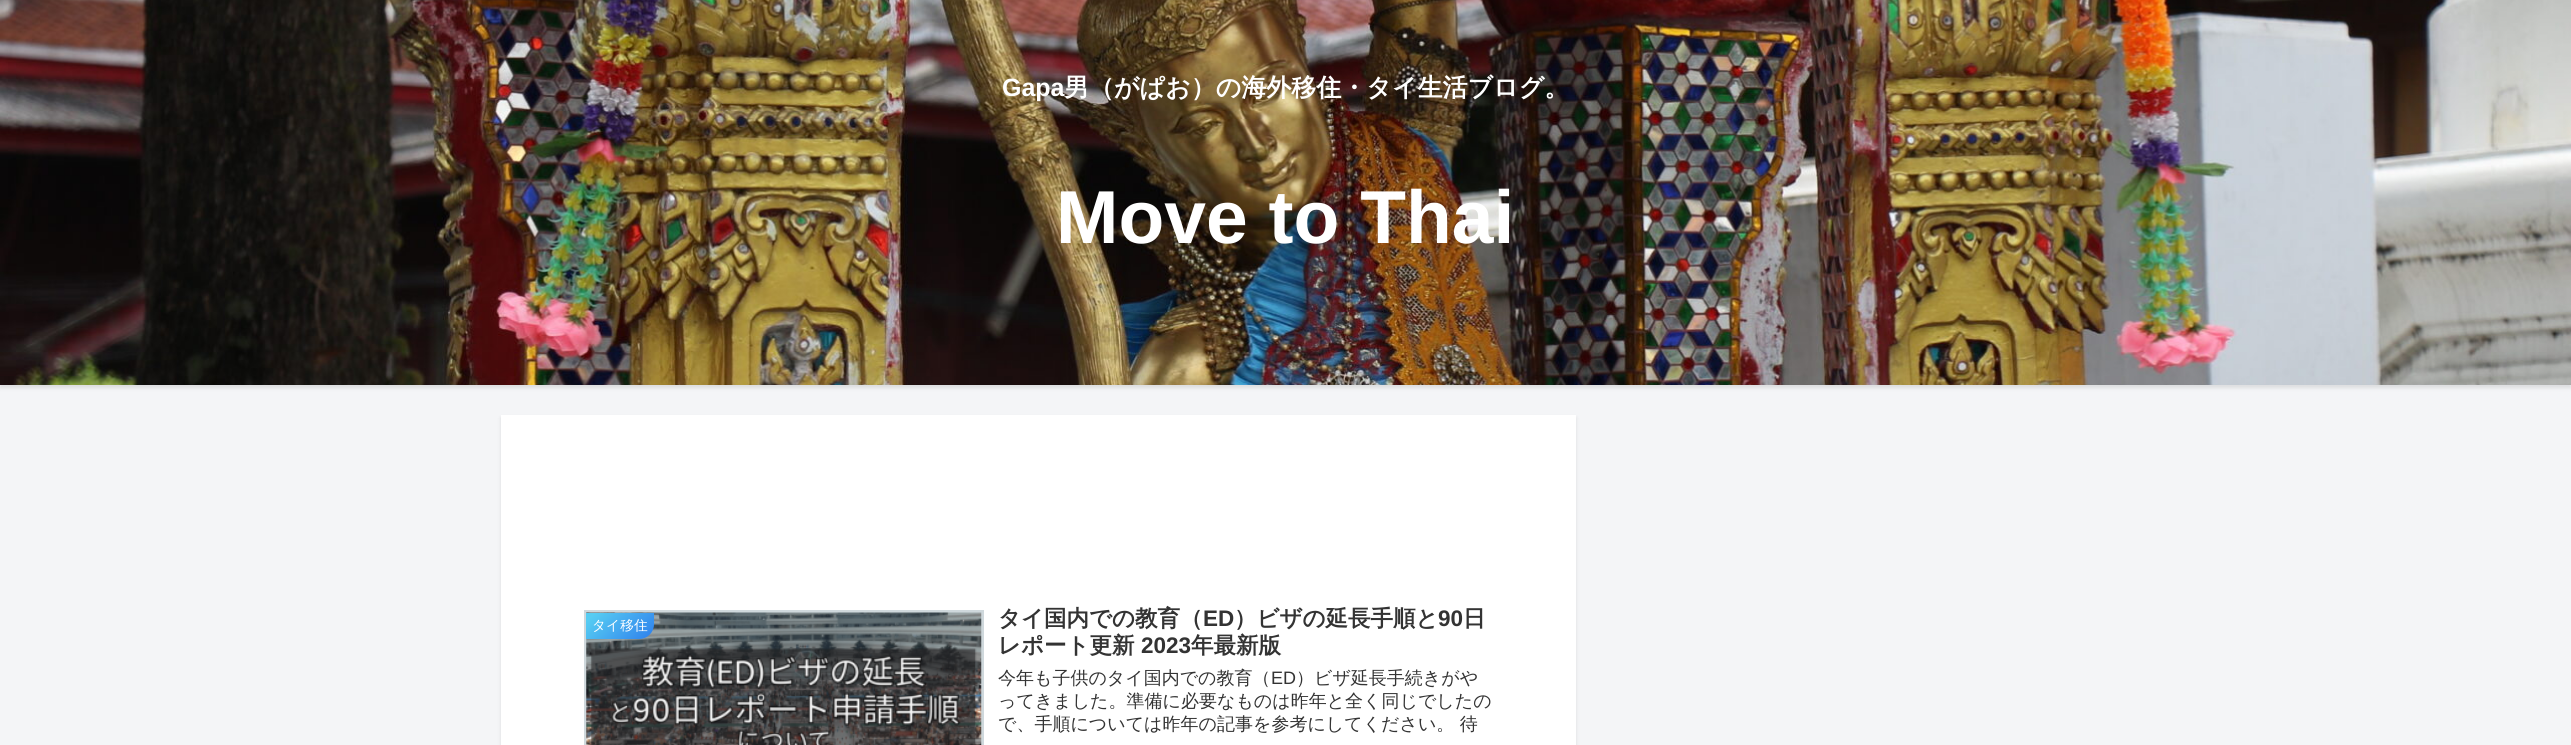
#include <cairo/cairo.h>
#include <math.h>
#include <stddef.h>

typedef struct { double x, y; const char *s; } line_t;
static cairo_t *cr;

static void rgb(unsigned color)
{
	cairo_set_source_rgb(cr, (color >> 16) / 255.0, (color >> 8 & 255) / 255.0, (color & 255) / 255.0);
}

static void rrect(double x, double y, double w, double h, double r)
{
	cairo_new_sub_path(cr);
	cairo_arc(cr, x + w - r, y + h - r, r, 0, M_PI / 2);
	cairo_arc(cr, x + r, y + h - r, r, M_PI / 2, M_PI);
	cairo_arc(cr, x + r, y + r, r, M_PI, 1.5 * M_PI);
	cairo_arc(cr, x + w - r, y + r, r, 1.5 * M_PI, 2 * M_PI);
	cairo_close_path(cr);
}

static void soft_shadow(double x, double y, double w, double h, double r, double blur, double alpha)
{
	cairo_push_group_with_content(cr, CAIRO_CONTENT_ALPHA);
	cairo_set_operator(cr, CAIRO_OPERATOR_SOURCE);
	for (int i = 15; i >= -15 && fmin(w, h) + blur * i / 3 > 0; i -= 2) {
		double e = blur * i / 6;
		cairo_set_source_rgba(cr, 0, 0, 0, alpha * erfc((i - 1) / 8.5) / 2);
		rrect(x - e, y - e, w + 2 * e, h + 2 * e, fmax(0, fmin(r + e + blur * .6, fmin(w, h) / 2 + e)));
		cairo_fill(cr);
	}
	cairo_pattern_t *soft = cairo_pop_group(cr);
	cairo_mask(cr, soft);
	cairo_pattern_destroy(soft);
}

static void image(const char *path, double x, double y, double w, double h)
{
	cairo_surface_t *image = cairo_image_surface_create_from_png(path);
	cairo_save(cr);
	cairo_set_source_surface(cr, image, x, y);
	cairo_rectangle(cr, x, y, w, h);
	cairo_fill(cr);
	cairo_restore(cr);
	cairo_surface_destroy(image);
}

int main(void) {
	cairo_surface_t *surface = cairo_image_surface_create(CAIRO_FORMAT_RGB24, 2571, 745);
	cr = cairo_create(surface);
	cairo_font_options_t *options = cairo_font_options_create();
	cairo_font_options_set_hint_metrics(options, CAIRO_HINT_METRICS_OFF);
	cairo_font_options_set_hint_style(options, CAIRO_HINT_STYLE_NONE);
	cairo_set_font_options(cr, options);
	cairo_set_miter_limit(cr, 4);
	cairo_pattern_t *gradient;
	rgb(0xf4f5f7);
	cairo_paint(cr);
	rgb(0x000000);
	soft_shadow(0, 3, 2571, 385, 0, 2, 0.1);
	image("img/1.png", 0, 0, 2571, 385);
	soft_shadow(501, 418, 1075, 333, 0, 2, 0.1);
	rgb(0xffffff);
	cairo_rectangle(cr, 501, 415, 1075, 330);
	cairo_fill(cr);
	cairo_rectangle(cr, 585.5, 611.5, 397, 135);
	rgb(0xcfd8dc);
	cairo_set_line_width(cr, 3);
	cairo_stroke(cr);
	image("img/2.png", 586, 612, 396, 133);
	gradient = cairo_pattern_create_linear(597, 602, 643, 649);
	cairo_pattern_add_color_stop_rgba(gradient, 0.1, 0.337, 0.8, 0.949, 1);
	cairo_pattern_add_color_stop_rgba(gradient, 1, 0.184, 0.502, 0.929, 1);
	cairo_set_source(cr, gradient);
	cairo_pattern_destroy(gradient);
	cairo_new_path(cr);
	cairo_move_to(cr, 586, 613);
	cairo_line_to(cr, 654, 613);
	cairo_line_to(cr, 654, 624);
	cairo_curve_to(cr, 654, 632.5, 647.5, 639, 639, 639);
	cairo_line_to(cr, 586, 639);
	cairo_close_path(cr);
	cairo_fill(cr);
	cairo_select_font_face(cr, "Liberation Sans", CAIRO_FONT_SLANT_NORMAL, CAIRO_FONT_WEIGHT_BOLD);
	cairo_set_font_size(cr, 25);
	rgb(0xffffff);
	cairo_move_to(cr, 1002, 96);
	cairo_show_text(cr, "Gapa");
	cairo_select_font_face(cr, "WenQuanYi Zen Hei", CAIRO_FONT_SLANT_NORMAL, CAIRO_FONT_WEIGHT_BOLD);
	cairo_move_to(cr, 1064, 96);
	cairo_show_text(cr, "男（がぱお）の海外移住・タイ生活ブログ。");
	cairo_select_font_face(cr, "Liberation Sans", CAIRO_FONT_SLANT_NORMAL, CAIRO_FONT_WEIGHT_BOLD);
	cairo_set_font_size(cr, 75);
	cairo_move_to(cr, 1056, 243);
	cairo_show_text(cr, "Move to Thai");
	cairo_select_font_face(cr, "WenQuanYi Zen Hei Medium", CAIRO_FONT_SLANT_NORMAL, CAIRO_FONT_WEIGHT_NORMAL);
	cairo_set_font_size(cr, 13.75);
	cairo_move_to(cr, 592, 630);
	cairo_show_text(cr, "タイ移住");
	cairo_select_font_face(cr, "WenQuanYi Zen Hei", CAIRO_FONT_SLANT_NORMAL, CAIRO_FONT_WEIGHT_BOLD);
	cairo_set_font_size(cr, 22.5);
	rgb(0x333333);
	cairo_move_to(cr, 998, 626);
	cairo_show_text(cr, "タイ国内での教育（");
	cairo_select_font_face(cr, "Liberation Sans", CAIRO_FONT_SLANT_NORMAL, CAIRO_FONT_WEIGHT_BOLD);
	cairo_move_to(cr, 1203, 626);
	cairo_show_text(cr, "ED");
	cairo_select_font_face(cr, "WenQuanYi Zen Hei", CAIRO_FONT_SLANT_NORMAL, CAIRO_FONT_WEIGHT_BOLD);
	cairo_move_to(cr, 1234, 626);
	cairo_show_text(cr, "）ビザの延長手順と");
	cairo_select_font_face(cr, "Liberation Sans", CAIRO_FONT_SLANT_NORMAL, CAIRO_FONT_WEIGHT_BOLD);
	cairo_move_to(cr, 1438, 626);
	cairo_show_text(cr, "90");
	cairo_select_font_face(cr, "WenQuanYi Zen Hei", CAIRO_FONT_SLANT_NORMAL, CAIRO_FONT_WEIGHT_BOLD);
	cairo_move_to(cr, 1463, 626);
	cairo_show_text(cr, "日");
	cairo_move_to(cr, 998, 653);
	cairo_show_text(cr, "レポート更新");
	cairo_select_font_face(cr, "Liberation Sans", CAIRO_FONT_SLANT_NORMAL, CAIRO_FONT_WEIGHT_BOLD);
	cairo_move_to(cr, 1141, 653);
	cairo_show_text(cr, "2023");
	cairo_select_font_face(cr, "WenQuanYi Zen Hei", CAIRO_FONT_SLANT_NORMAL, CAIRO_FONT_WEIGHT_BOLD);
	cairo_move_to(cr, 1191, 653);
	cairo_show_text(cr, "年最新版");
	cairo_select_font_face(cr, "WenQuanYi Zen Hei Medium", CAIRO_FONT_SLANT_NORMAL, CAIRO_FONT_WEIGHT_NORMAL);
	cairo_set_font_size(cr, 18);
	cairo_move_to(cr, 998, 684);
	cairo_show_text(cr, "今年も子供のタイ国内での教育（");
	cairo_select_font_face(cr, "Liberation Sans", CAIRO_FONT_SLANT_NORMAL, CAIRO_FONT_WEIGHT_NORMAL);
	cairo_move_to(cr, 1271, 684);
	cairo_show_text(cr, "ED");
	cairo_select_font_face(cr, "WenQuanYi Zen Hei Medium", CAIRO_FONT_SLANT_NORMAL, CAIRO_FONT_WEIGHT_NORMAL);
	{
		static const line_t items[] = {
			{1296, 684, "）ビザ延長手続きがや"},
			{998, 707, "ってきました。準備に必要なものは昨年と全く同じでしたの"},
			{998, 730, "で、手順については昨年の記事を参考にしてください。 待"},
		};
		for (size_t i = 0; i < sizeof items / sizeof *items; i++) {
			cairo_move_to(cr, items[i].x, items[i].y);
			cairo_show_text(cr, items[i].s);
		}
	}
	cairo_surface_write_to_png(surface, "page.png");
	cairo_font_options_destroy(options);
	cairo_destroy(cr);
	cairo_surface_destroy(surface);
	return 0;
}
